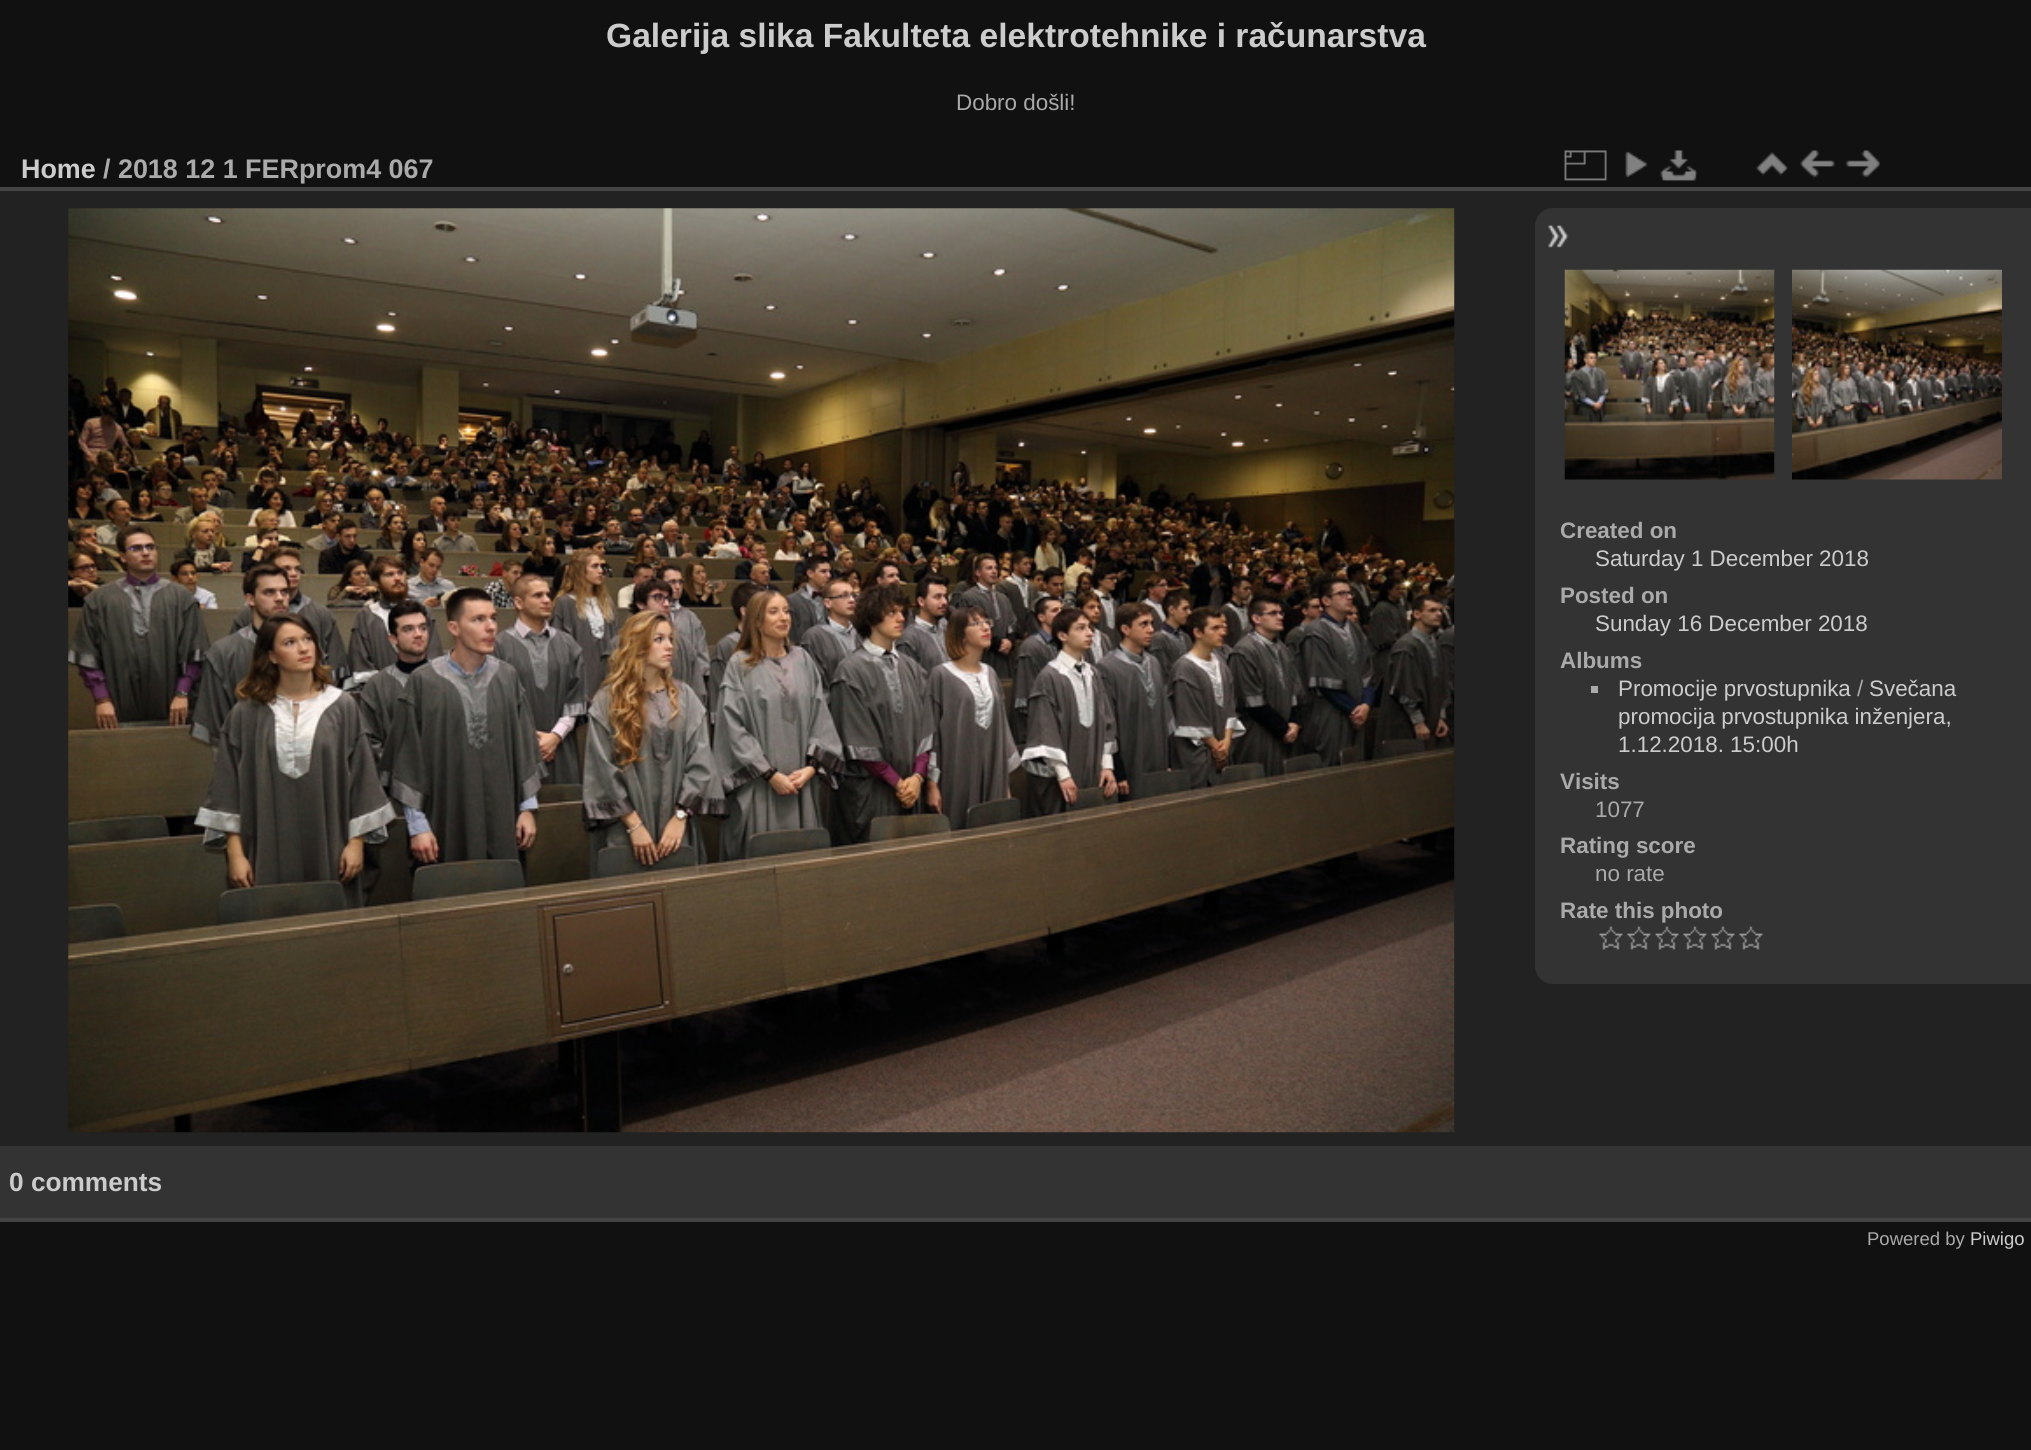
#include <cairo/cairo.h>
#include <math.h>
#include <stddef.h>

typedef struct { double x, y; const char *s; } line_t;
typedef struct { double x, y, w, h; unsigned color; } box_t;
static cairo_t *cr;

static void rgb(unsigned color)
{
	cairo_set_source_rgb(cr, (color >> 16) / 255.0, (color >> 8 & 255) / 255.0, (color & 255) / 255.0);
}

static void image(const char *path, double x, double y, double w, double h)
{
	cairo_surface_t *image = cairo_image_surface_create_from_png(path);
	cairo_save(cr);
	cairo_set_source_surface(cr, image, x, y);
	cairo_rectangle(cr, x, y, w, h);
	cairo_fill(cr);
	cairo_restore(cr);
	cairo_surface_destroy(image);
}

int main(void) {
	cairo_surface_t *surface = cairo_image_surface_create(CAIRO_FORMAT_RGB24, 2031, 1450);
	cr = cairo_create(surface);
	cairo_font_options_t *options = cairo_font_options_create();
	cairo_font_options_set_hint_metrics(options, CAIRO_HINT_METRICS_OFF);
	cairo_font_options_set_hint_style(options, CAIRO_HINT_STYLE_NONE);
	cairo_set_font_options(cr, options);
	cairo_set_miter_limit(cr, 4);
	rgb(0x111111);
	cairo_paint(cr);
	{
		static const box_t items[] = {
			{0, 191, 2031, 955, 0x222222},
			{0, 1218, 2031, 4, 0x444444},
			{0, 187, 2031, 4, 0x444444},
		};
		for (size_t i = 0; i < sizeof items / sizeof *items; i++) {
			rgb(items[i].color);
			cairo_rectangle(cr, items[i].x, items[i].y, items[i].w, items[i].h);
			cairo_fill(cr);
		}
	}
	image("img/1.png", 1564, 150, 43, 31);
	image("img/2.png", 1625, 151, 23, 27);
	image("img/3.png", 1660, 150, 38, 31);
	image("img/4.png", 1756, 152, 32, 24);
	image("img/5.png", 1800, 150, 35, 28);
	image("img/6.png", 1846, 150, 34, 28);
	image("img/7.png", 68, 208, 1387, 925);
	rgb(0x333333);
	cairo_new_path(cr);
	cairo_move_to(cr, 1553, 208);
	cairo_line_to(cr, 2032, 208);
	cairo_line_to(cr, 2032, 984);
	cairo_line_to(cr, 1553, 984);
	cairo_curve_to(cr, 1543, 984, 1535, 976, 1535, 966);
	cairo_line_to(cr, 1535, 226);
	cairo_curve_to(cr, 1535, 216, 1543, 208, 1553, 208);
	cairo_close_path(cr);
	cairo_fill(cr);
	image("img/8.png", 1548, 225, 21, 23);
	image("img/9.png", 1564, 269, 211, 211);
	image("img/10.png", 1792, 269, 210, 211);
	rgb(0xaaaaaa);
	cairo_rectangle(cr, 1591, 686, 7, 7);
	cairo_fill(cr);
	image("img/11.png", 1599, 926, 24, 24);
	image("img/11.png", 1627, 926, 24, 24);
	image("img/11.png", 1655, 926, 24, 24);
	image("img/11.png", 1683, 926, 24, 24);
	image("img/11.png", 1711, 926, 24, 24);
	image("img/11.png", 1739, 926, 24, 24);
	rgb(0x333333);
	cairo_rectangle(cr, 0, 1146, 2031, 72);
	cairo_fill(cr);
	cairo_select_font_face(cr, "Liberation Sans", CAIRO_FONT_SLANT_NORMAL, CAIRO_FONT_WEIGHT_BOLD);
	cairo_set_font_size(cr, 33.6);
	rgb(0xcccccc);
	cairo_move_to(cr, 606, 47);
	cairo_show_text(cr, "Galerija slika Fakulteta elektrotehnike i računarstva");
	cairo_select_font_face(cr, "Liberation Sans", CAIRO_FONT_SLANT_NORMAL, CAIRO_FONT_WEIGHT_NORMAL);
	cairo_set_font_size(cr, 22.4);
	rgb(0xaaaaaa);
	cairo_move_to(cr, 956, 110);
	cairo_show_text(cr, "Dobro došli!");
	cairo_select_font_face(cr, "Liberation Sans", CAIRO_FONT_SLANT_NORMAL, CAIRO_FONT_WEIGHT_BOLD);
	cairo_set_font_size(cr, 26.9);
	rgb(0xcccccc);
	cairo_move_to(cr, 21, 178);
	cairo_show_text(cr, "Home");
	rgb(0xaaaaaa);
	cairo_move_to(cr, 103, 178);
	cairo_show_text(cr, "/ 2018 12 1 FERprom4 067");
	cairo_set_font_size(cr, 22.4);
	cairo_move_to(cr, 1560, 538);
	cairo_show_text(cr, "Created on");
	cairo_select_font_face(cr, "Liberation Sans", CAIRO_FONT_SLANT_NORMAL, CAIRO_FONT_WEIGHT_NORMAL);
	rgb(0xcccccc);
	cairo_move_to(cr, 1595, 566);
	cairo_show_text(cr, "Saturday 1 December 2018");
	cairo_select_font_face(cr, "Liberation Sans", CAIRO_FONT_SLANT_NORMAL, CAIRO_FONT_WEIGHT_BOLD);
	rgb(0xaaaaaa);
	cairo_move_to(cr, 1560, 603);
	cairo_show_text(cr, "Posted on");
	cairo_select_font_face(cr, "Liberation Sans", CAIRO_FONT_SLANT_NORMAL, CAIRO_FONT_WEIGHT_NORMAL);
	rgb(0xcccccc);
	cairo_move_to(cr, 1595, 631);
	cairo_show_text(cr, "Sunday 16 December 2018");
	cairo_select_font_face(cr, "Liberation Sans", CAIRO_FONT_SLANT_NORMAL, CAIRO_FONT_WEIGHT_BOLD);
	rgb(0xaaaaaa);
	cairo_move_to(cr, 1560, 668);
	cairo_show_text(cr, "Albums");
	cairo_select_font_face(cr, "Liberation Sans", CAIRO_FONT_SLANT_NORMAL, CAIRO_FONT_WEIGHT_NORMAL);
	rgb(0xcccccc);
	cairo_move_to(cr, 1618, 696);
	cairo_show_text(cr, "Promocije prvostupnika");
	rgb(0xaaaaaa);
	cairo_move_to(cr, 1857, 696);
	cairo_show_text(cr, "/");
	rgb(0xcccccc);
	{
		static const line_t items[] = {
			{1869, 696, "Svečana"},
			{1618, 724, "promocija prvostupnika inženjera,"},
			{1618, 752, "1.12.2018. 15:00h"},
		};
		for (size_t i = 0; i < sizeof items / sizeof *items; i++) {
			cairo_move_to(cr, items[i].x, items[i].y);
			cairo_show_text(cr, items[i].s);
		}
	}
	cairo_select_font_face(cr, "Liberation Sans", CAIRO_FONT_SLANT_NORMAL, CAIRO_FONT_WEIGHT_BOLD);
	rgb(0xaaaaaa);
	cairo_move_to(cr, 1560, 789);
	cairo_show_text(cr, "Visits");
	cairo_select_font_face(cr, "Liberation Sans", CAIRO_FONT_SLANT_NORMAL, CAIRO_FONT_WEIGHT_NORMAL);
	cairo_move_to(cr, 1595, 817);
	cairo_show_text(cr, "1077");
	cairo_select_font_face(cr, "Liberation Sans", CAIRO_FONT_SLANT_NORMAL, CAIRO_FONT_WEIGHT_BOLD);
	cairo_move_to(cr, 1560, 853);
	cairo_show_text(cr, "Rating score");
	cairo_select_font_face(cr, "Liberation Sans", CAIRO_FONT_SLANT_NORMAL, CAIRO_FONT_WEIGHT_NORMAL);
	cairo_move_to(cr, 1595, 881);
	cairo_show_text(cr, "no rate");
	cairo_select_font_face(cr, "Liberation Sans", CAIRO_FONT_SLANT_NORMAL, CAIRO_FONT_WEIGHT_BOLD);
	cairo_move_to(cr, 1560, 918);
	cairo_show_text(cr, "Rate this photo");
	cairo_set_font_size(cr, 26.25);
	rgb(0xcccccc);
	cairo_move_to(cr, 9, 1191);
	cairo_show_text(cr, "0 comments");
	cairo_select_font_face(cr, "Liberation Sans", CAIRO_FONT_SLANT_NORMAL, CAIRO_FONT_WEIGHT_NORMAL);
	cairo_set_font_size(cr, 18.5);
	rgb(0xaaaaaa);
	cairo_move_to(cr, 1867, 1245);
	cairo_show_text(cr, "Powered by");
	rgb(0xcccccc);
	cairo_move_to(cr, 1970, 1245);
	cairo_show_text(cr, "Piwigo");
	cairo_surface_write_to_png(surface, "page.png");
	cairo_font_options_destroy(options);
	cairo_destroy(cr);
	cairo_surface_destroy(surface);
	return 0;
}
